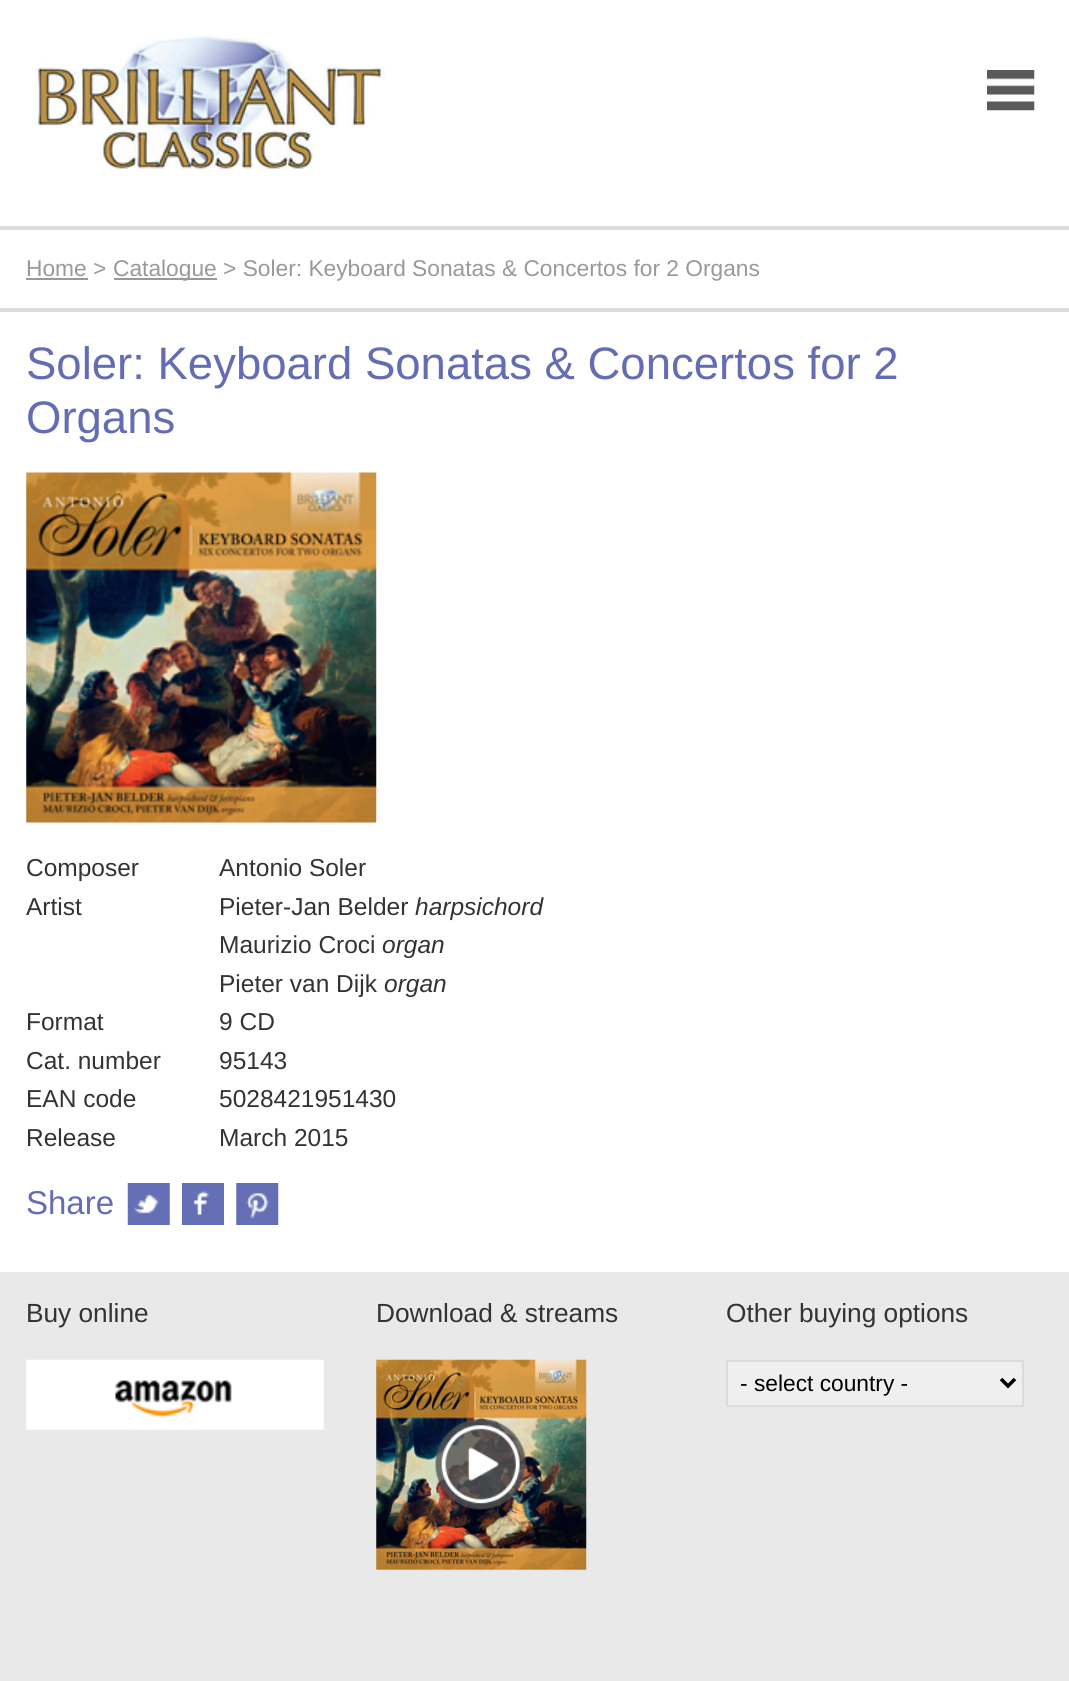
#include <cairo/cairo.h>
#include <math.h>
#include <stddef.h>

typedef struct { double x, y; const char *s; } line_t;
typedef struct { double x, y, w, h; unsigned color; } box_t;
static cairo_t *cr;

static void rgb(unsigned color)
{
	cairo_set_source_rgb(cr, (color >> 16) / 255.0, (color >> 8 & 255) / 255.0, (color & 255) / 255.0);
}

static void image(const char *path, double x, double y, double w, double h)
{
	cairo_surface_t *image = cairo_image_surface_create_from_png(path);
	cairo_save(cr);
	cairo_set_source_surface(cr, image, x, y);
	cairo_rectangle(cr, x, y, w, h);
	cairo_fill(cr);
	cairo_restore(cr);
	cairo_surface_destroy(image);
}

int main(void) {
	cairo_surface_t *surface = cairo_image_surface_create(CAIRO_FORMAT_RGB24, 1069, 1681);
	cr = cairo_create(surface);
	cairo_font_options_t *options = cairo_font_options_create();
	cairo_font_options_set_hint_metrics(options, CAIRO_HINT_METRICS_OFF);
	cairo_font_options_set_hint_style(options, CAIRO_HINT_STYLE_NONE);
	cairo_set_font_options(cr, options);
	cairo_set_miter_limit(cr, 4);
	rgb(0xffffff);
	cairo_paint(cr);
	image("img/1.png", 35, 35, 350, 135);
	image("img/2.png", 987, 70, 48, 41);
	{
		static const box_t items[] = {
			{0, 226, 1069, 4, 0xdddddd},
			{0, 308, 1069, 4, 0xdddddd},
			{26, 278, 62, 2, 0x999999},
			{114, 278, 103, 2, 0x999999},
		};
		for (size_t i = 0; i < sizeof items / sizeof *items; i++) {
			rgb(items[i].color);
			cairo_rectangle(cr, items[i].x, items[i].y, items[i].w, items[i].h);
			cairo_fill(cr);
		}
	}
	image("img/3.png", 26, 472, 351, 351);
	image("img/4.png", 127, 1183, 43, 42);
	image("img/5.png", 182, 1183, 42, 42);
	image("img/6.png", 236, 1183, 43, 42);
	rgb(0xe9e9e9);
	cairo_rectangle(cr, 0, 1272, 1069, 409);
	cairo_fill(cr);
	image("img/7.png", 26, 1359, 298, 71);
	image("img/8.png", 376, 1359, 211, 211);
	image("img/9.png", 435, 1419, 91, 91);
	rgb(0xefefef);
	cairo_rectangle(cr, 727, 1361, 296, 45);
	cairo_fill_preserve(cr);
	rgb(0xdbdbdb);
	cairo_stroke(cr);
	cairo_new_path(cr);
	cairo_move_to(cr, 1001, 1379);
	cairo_line_to(cr, 1008, 1386);
	cairo_line_to(cr, 1015, 1379);
	rgb(0x000000);
	cairo_set_line_width(cr, 3.5);
	cairo_stroke(cr);
	cairo_select_font_face(cr, "Liberation Sans", CAIRO_FONT_SLANT_NORMAL, CAIRO_FONT_WEIGHT_NORMAL);
	cairo_set_font_size(cr, 22.75);
	rgb(0x999999);
	cairo_move_to(cr, 26, 276);
	cairo_show_text(cr, "Home >");
	cairo_move_to(cr, 113, 276);
	cairo_show_text(cr, "Catalogue > Soler: Keyboard Sonatas & Concertos for 2 Organs");
	cairo_set_font_size(cr, 45.5);
	rgb(0x646db3);
	cairo_move_to(cr, 26, 379);
	cairo_show_text(cr, "Soler: Keyboard Sonatas & Concertos for 2");
	cairo_move_to(cr, 26, 433);
	cairo_show_text(cr, "Organs");
	cairo_set_font_size(cr, 24.5);
	rgb(0x333333);
	{
		static const line_t items[] = {
			{26, 876, "Composer"},
			{219, 876, "Antonio Soler"},
			{26, 915, "Artist"},
			{219, 915, "Pieter-Jan Belder"},
		};
		for (size_t i = 0; i < sizeof items / sizeof *items; i++) {
			cairo_move_to(cr, items[i].x, items[i].y);
			cairo_show_text(cr, items[i].s);
		}
	}
	cairo_select_font_face(cr, "Liberation Sans", CAIRO_FONT_SLANT_ITALIC, CAIRO_FONT_WEIGHT_NORMAL);
	cairo_move_to(cr, 415, 915);
	cairo_show_text(cr, "harpsichord");
	cairo_select_font_face(cr, "Liberation Sans", CAIRO_FONT_SLANT_NORMAL, CAIRO_FONT_WEIGHT_NORMAL);
	cairo_move_to(cr, 219, 953);
	cairo_show_text(cr, "Maurizio Croci");
	cairo_select_font_face(cr, "Liberation Sans", CAIRO_FONT_SLANT_ITALIC, CAIRO_FONT_WEIGHT_NORMAL);
	cairo_move_to(cr, 382, 953);
	cairo_show_text(cr, "organ");
	cairo_select_font_face(cr, "Liberation Sans", CAIRO_FONT_SLANT_NORMAL, CAIRO_FONT_WEIGHT_NORMAL);
	cairo_move_to(cr, 219, 992);
	cairo_show_text(cr, "Pieter van Dijk");
	cairo_select_font_face(cr, "Liberation Sans", CAIRO_FONT_SLANT_ITALIC, CAIRO_FONT_WEIGHT_NORMAL);
	cairo_move_to(cr, 384, 992);
	cairo_show_text(cr, "organ");
	cairo_select_font_face(cr, "Liberation Sans", CAIRO_FONT_SLANT_NORMAL, CAIRO_FONT_WEIGHT_NORMAL);
	{
		static const line_t items[] = {
			{26, 1030, "Format"},
			{219, 1030, "9 CD"},
			{26, 1069, "Cat. number"},
			{219, 1069, "95143"},
			{26, 1107, "EAN code"},
			{219, 1107, "5028421951430"},
			{26, 1146, "Release"},
			{219, 1146, "March 2015"},
		};
		for (size_t i = 0; i < sizeof items / sizeof *items; i++) {
			cairo_move_to(cr, items[i].x, items[i].y);
			cairo_show_text(cr, items[i].s);
		}
	}
	cairo_set_font_size(cr, 33);
	rgb(0x646db3);
	cairo_move_to(cr, 26, 1214);
	cairo_show_text(cr, "Share");
	cairo_set_font_size(cr, 26.25);
	rgb(0x333333);
	{
		static const line_t items[] = {
			{26, 1322, "Buy online"},
			{376, 1322, "Download & streams"},
			{726, 1322, "Other buying options"},
		};
		for (size_t i = 0; i < sizeof items / sizeof *items; i++) {
			cairo_move_to(cr, items[i].x, items[i].y);
			cairo_show_text(cr, items[i].s);
		}
	}
	cairo_set_font_size(cr, 22.75);
	rgb(0x000000);
	cairo_move_to(cr, 740, 1391);
	cairo_show_text(cr, "- select country -");
	cairo_surface_write_to_png(surface, "page.png");
	cairo_font_options_destroy(options);
	cairo_destroy(cr);
	cairo_surface_destroy(surface);
	return 0;
}
